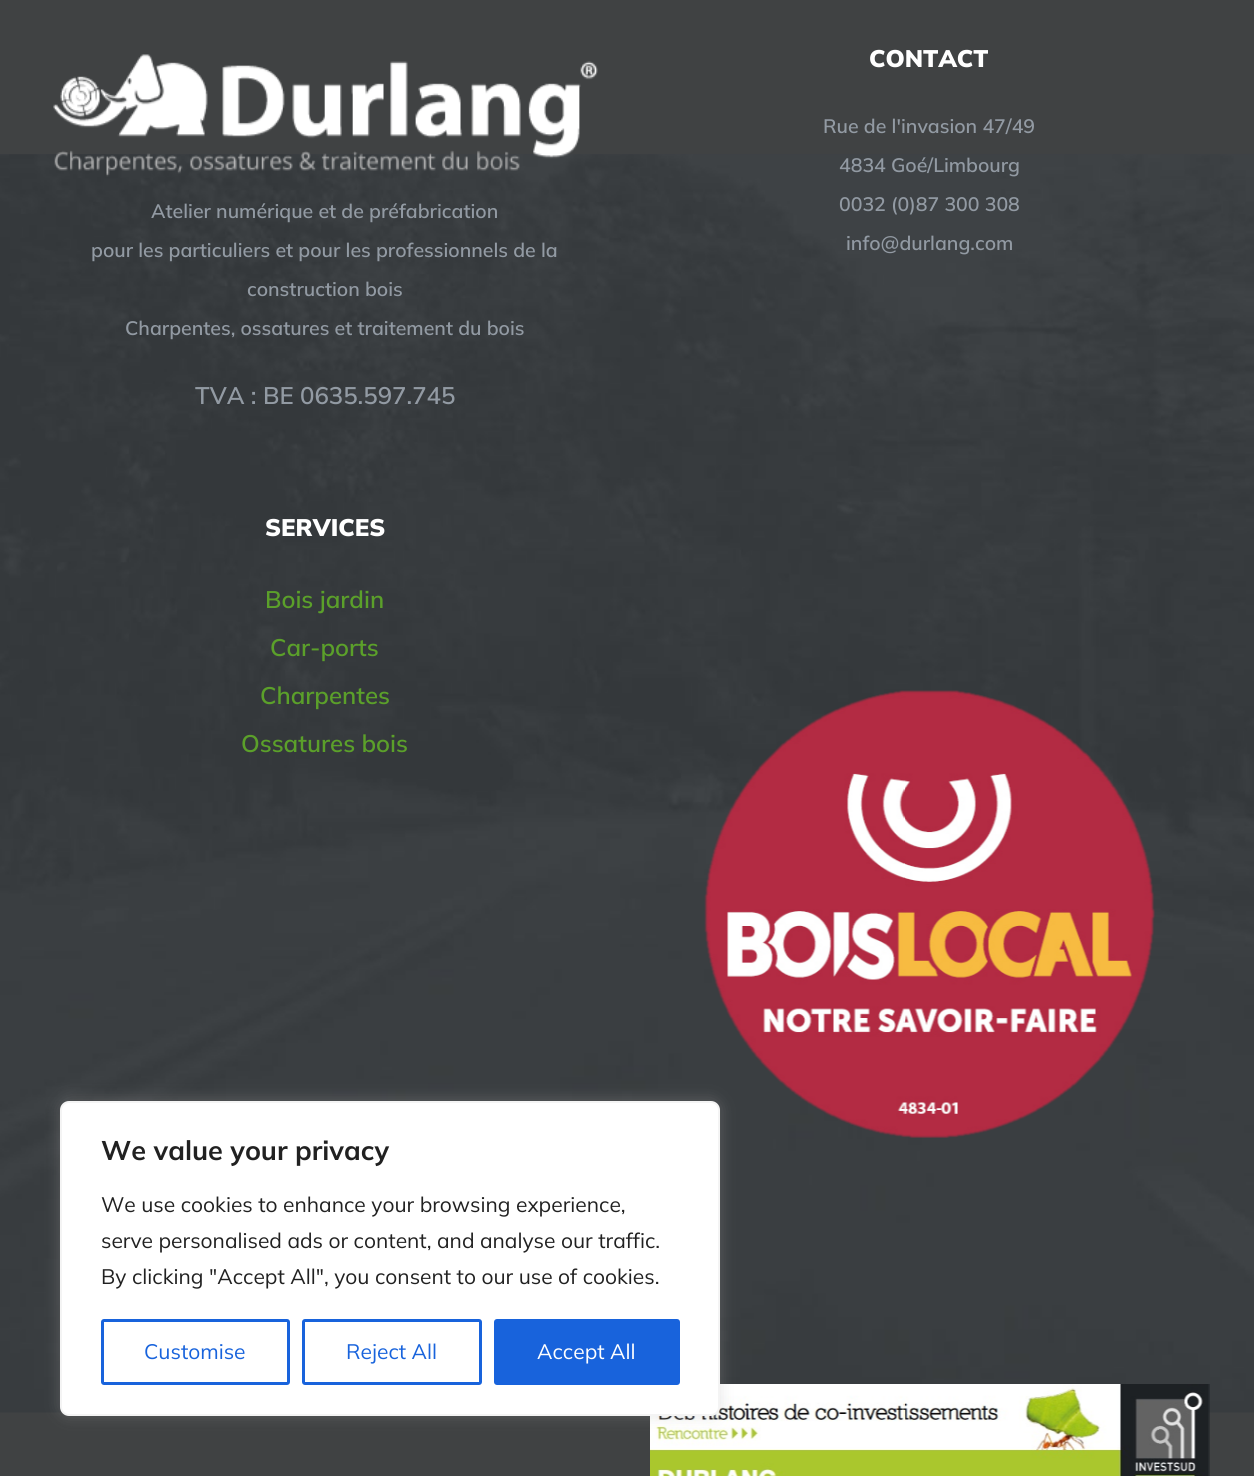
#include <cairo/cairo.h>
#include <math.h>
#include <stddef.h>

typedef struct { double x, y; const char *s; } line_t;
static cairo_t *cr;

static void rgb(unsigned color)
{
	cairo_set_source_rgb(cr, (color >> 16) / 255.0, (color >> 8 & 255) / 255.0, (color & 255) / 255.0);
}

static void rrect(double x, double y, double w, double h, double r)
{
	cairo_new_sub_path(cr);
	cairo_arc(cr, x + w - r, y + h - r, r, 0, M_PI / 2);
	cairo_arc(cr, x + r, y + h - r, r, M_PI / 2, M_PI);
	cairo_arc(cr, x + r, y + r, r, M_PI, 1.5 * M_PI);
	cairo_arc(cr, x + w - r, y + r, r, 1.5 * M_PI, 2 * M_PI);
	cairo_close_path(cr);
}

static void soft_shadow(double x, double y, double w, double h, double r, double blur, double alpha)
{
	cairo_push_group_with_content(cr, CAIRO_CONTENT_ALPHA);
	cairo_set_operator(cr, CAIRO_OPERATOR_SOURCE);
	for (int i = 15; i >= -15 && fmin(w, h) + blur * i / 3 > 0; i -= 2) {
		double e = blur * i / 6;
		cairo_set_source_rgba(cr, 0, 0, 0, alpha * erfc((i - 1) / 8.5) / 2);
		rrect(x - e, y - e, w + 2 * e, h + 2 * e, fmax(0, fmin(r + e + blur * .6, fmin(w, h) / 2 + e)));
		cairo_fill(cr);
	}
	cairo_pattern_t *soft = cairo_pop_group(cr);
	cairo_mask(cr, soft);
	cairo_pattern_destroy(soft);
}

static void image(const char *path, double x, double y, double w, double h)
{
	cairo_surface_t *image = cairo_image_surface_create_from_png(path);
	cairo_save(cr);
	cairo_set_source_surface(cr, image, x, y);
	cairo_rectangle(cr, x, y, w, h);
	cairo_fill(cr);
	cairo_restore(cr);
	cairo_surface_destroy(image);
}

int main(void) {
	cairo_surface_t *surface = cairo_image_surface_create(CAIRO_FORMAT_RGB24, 1254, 1476);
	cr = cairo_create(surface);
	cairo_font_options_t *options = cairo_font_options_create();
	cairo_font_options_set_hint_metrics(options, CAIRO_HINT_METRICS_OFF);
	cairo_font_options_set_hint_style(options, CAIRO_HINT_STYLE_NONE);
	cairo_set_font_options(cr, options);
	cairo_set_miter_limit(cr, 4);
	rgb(0x404243);
	cairo_paint(cr);
	image("img/1.png", 0, 154, 1254, 1259);
	image("img/2.png", 53, 54, 545, 123);
	image("img/3.png", 704, 690, 451, 448);
	image("img/4.png", 650, 1384, 560, 92);
	rgb(0xacabab);
	soft_shadow(60, 1100, 660, 315, 9, 7.5, 0.3);
	rgb(0xffffff);
	rrect(61, 1102, 658, 313, 8);
	cairo_fill_preserve(cr);
	rgb(0xf4f4f4);
	cairo_stroke(cr);
	rrect(102.5, 1320.5, 186, 63, 1.5);
	rgb(0x1863dc);
	cairo_set_line_width(cr, 3);
	cairo_stroke(cr);
	rrect(303.5, 1320.5, 177, 63, 1.5);
	cairo_stroke(cr);
	rrect(495.5, 1320.5, 183, 63, 1.5);
	cairo_fill_preserve(cr);
	cairo_stroke(cr);
	cairo_select_font_face(cr, "Mulish Black", CAIRO_FONT_SLANT_NORMAL, CAIRO_FONT_WEIGHT_NORMAL);
	cairo_set_font_size(cr, 24);
	rgb(0xffffff);
	cairo_move_to(cr, 869, 67);
	cairo_show_text(cr, "CONTACT");
	cairo_select_font_face(cr, "Mulish SemiBold", CAIRO_FONT_SLANT_NORMAL, CAIRO_FONT_WEIGHT_NORMAL);
	cairo_set_font_size(cr, 19.5);
	rgb(0x929aa3);
	{
		static const line_t items[] = {
			{823, 133, "Rue de l'invasion 47/49"},
			{839, 172, "4834 Goé/Limbourg"},
			{839, 211, "0032 (0)87 300 308"},
			{846, 250, "info@durlang.com"},
			{151, 218, "Atelier numérique et de préfabrication"},
			{91, 257, "pour les particuliers et pour les professionnels de la"},
			{247, 296, "construction bois"},
			{125, 335, "Charpentes, ossatures et traitement du bois"},
		};
		for (size_t i = 0; i < sizeof items / sizeof *items; i++) {
			cairo_move_to(cr, items[i].x, items[i].y);
			cairo_show_text(cr, items[i].s);
		}
	}
	cairo_set_font_size(cr, 24);
	cairo_move_to(cr, 195, 404);
	cairo_show_text(cr, "TVA : BE 0635.597.745");
	cairo_select_font_face(cr, "Mulish Black", CAIRO_FONT_SLANT_NORMAL, CAIRO_FONT_WEIGHT_NORMAL);
	rgb(0xffffff);
	cairo_move_to(cr, 265, 536);
	cairo_show_text(cr, "SERVICES");
	cairo_select_font_face(cr, "Mulish SemiBold", CAIRO_FONT_SLANT_NORMAL, CAIRO_FONT_WEIGHT_NORMAL);
	rgb(0x5ba02a);
	{
		static const line_t items[] = {
			{265, 608, "Bois jardin"},
			{270, 656, "Car-ports"},
			{260, 704, "Charpentes"},
			{241, 752, "Ossatures bois"},
		};
		for (size_t i = 0; i < sizeof items / sizeof *items; i++) {
			cairo_move_to(cr, items[i].x, items[i].y);
			cairo_show_text(cr, items[i].s);
		}
	}
	cairo_select_font_face(cr, "Mulish", CAIRO_FONT_SLANT_NORMAL, CAIRO_FONT_WEIGHT_BOLD);
	cairo_set_font_size(cr, 27);
	rgb(0x212121);
	cairo_move_to(cr, 101, 1160);
	cairo_show_text(cr, "We value your privacy");
	cairo_select_font_face(cr, "Mulish", CAIRO_FONT_SLANT_NORMAL, CAIRO_FONT_WEIGHT_NORMAL);
	cairo_set_font_size(cr, 21);
	{
		static const line_t items[] = {
			{101, 1212, "We use cookies to enhance your browsing experience,"},
			{101, 1248, "serve personalised ads or content, and analyse our traffic."},
			{101, 1284, "By clicking \"Accept All\", you consent to our use of cookies."},
		};
		for (size_t i = 0; i < sizeof items / sizeof *items; i++) {
			cairo_move_to(cr, items[i].x, items[i].y);
			cairo_show_text(cr, items[i].s);
		}
	}
	rgb(0x1863dc);
	cairo_move_to(cr, 144, 1359);
	cairo_show_text(cr, "Customise");
	cairo_move_to(cr, 346, 1359);
	cairo_show_text(cr, "Reject All");
	rgb(0xffffff);
	cairo_move_to(cr, 537, 1359);
	cairo_show_text(cr, "Accept All");
	cairo_surface_write_to_png(surface, "page.png");
	cairo_font_options_destroy(options);
	cairo_destroy(cr);
	cairo_surface_destroy(surface);
	return 0;
}
